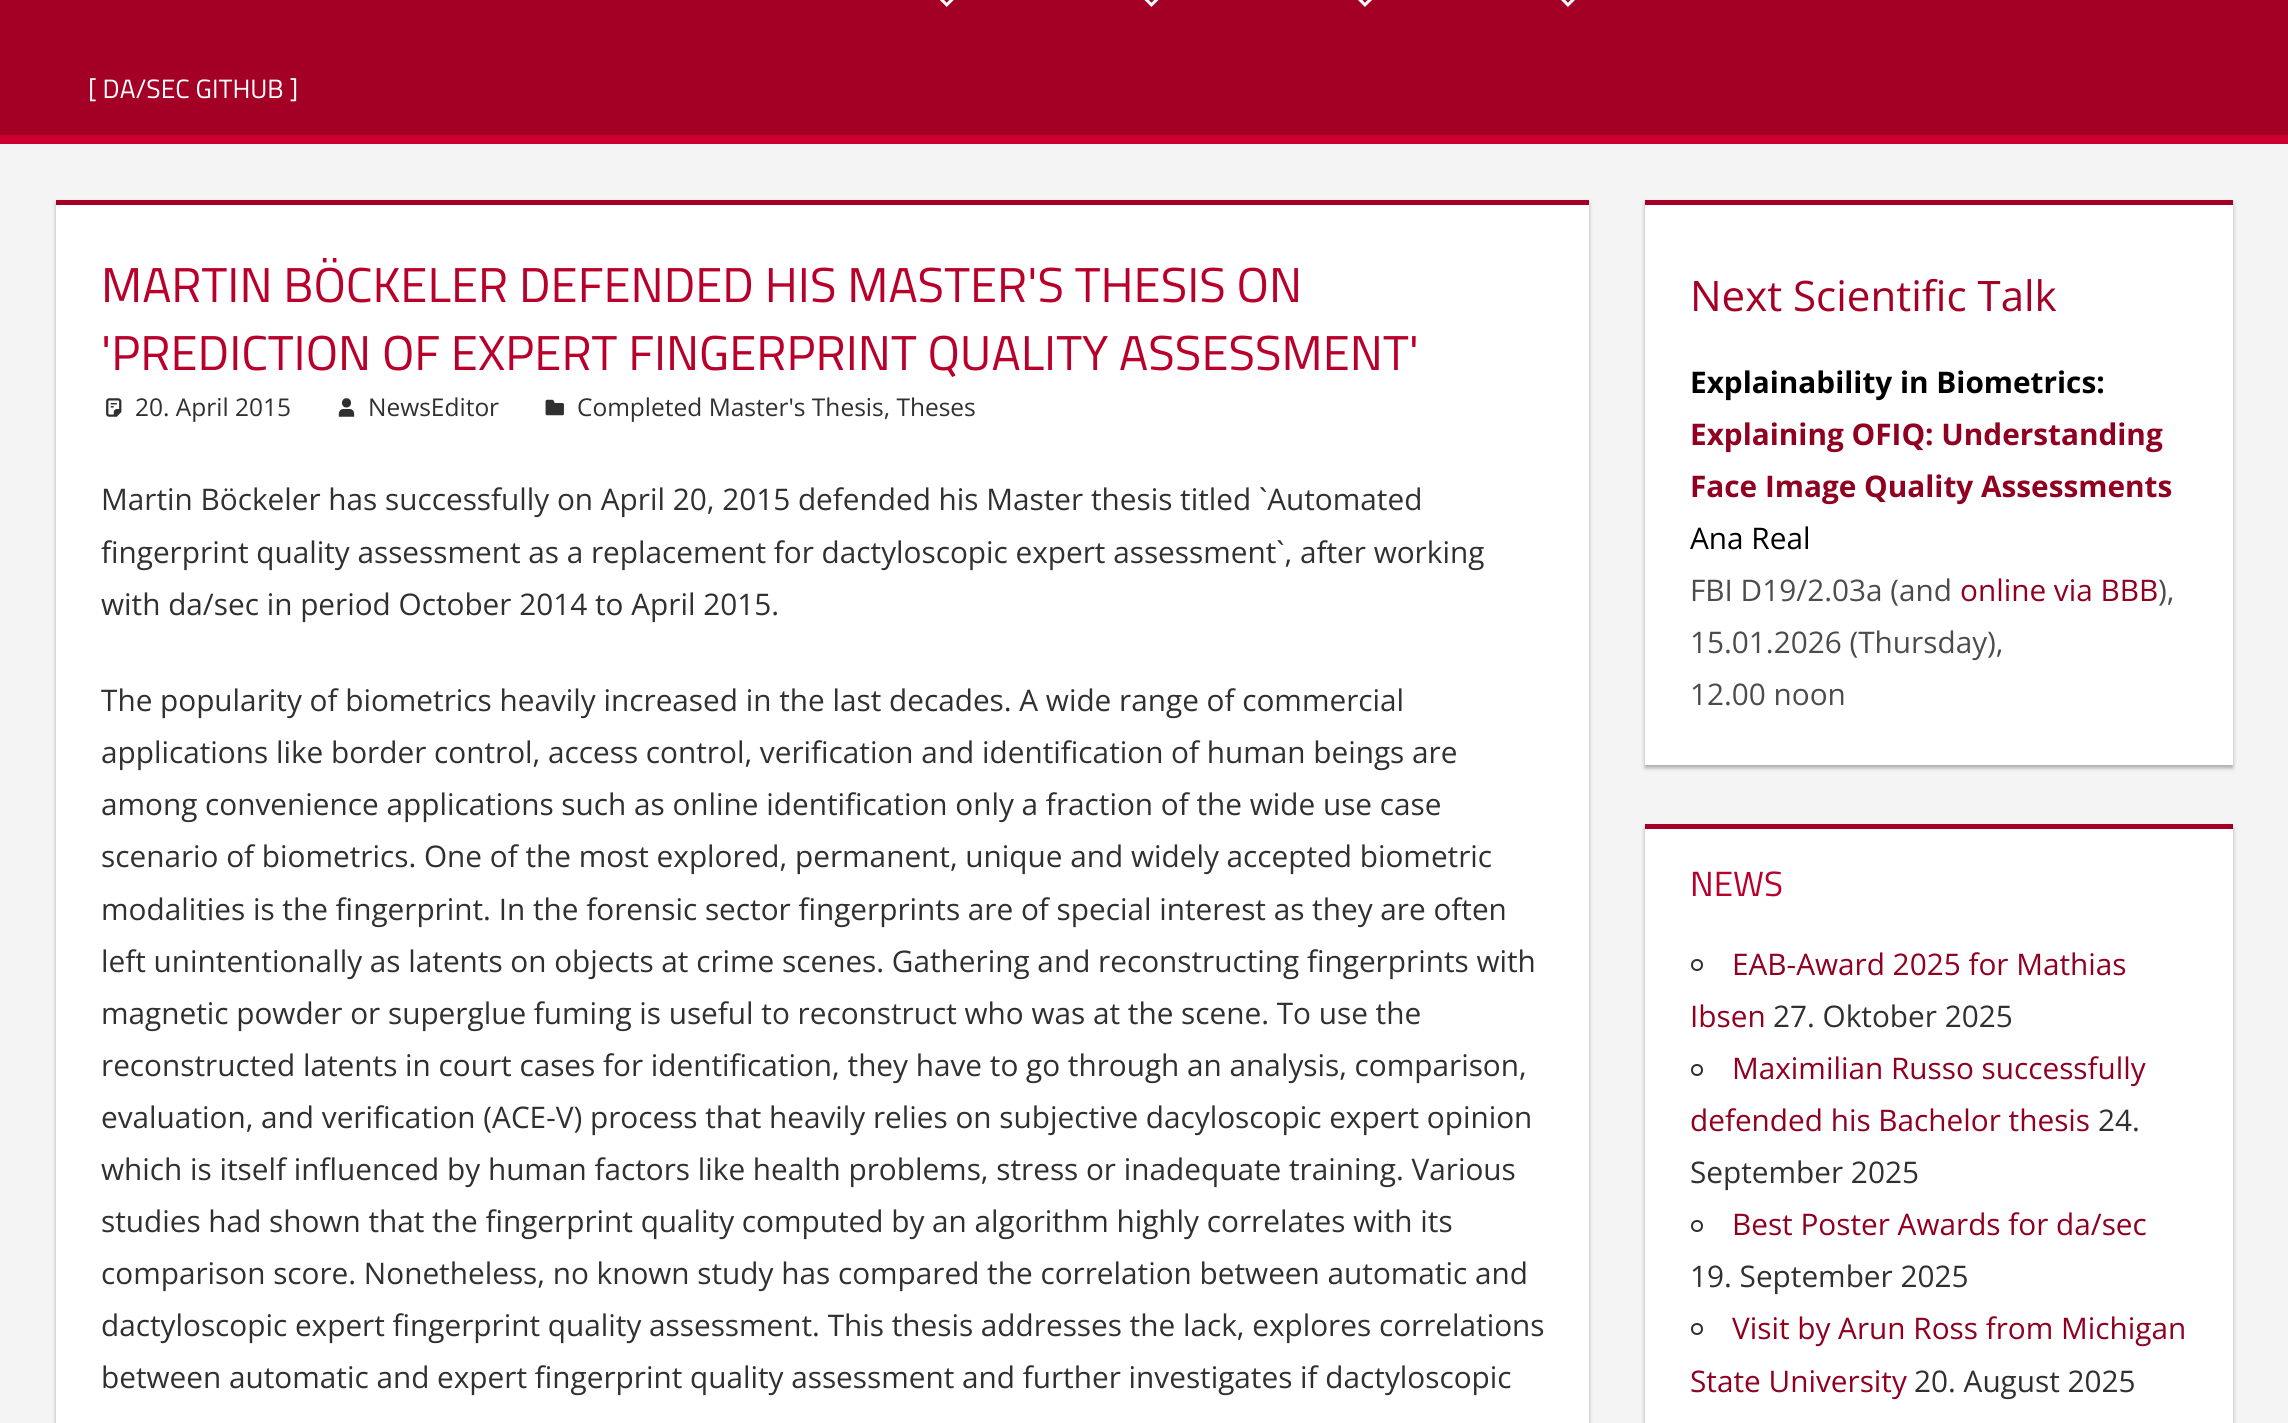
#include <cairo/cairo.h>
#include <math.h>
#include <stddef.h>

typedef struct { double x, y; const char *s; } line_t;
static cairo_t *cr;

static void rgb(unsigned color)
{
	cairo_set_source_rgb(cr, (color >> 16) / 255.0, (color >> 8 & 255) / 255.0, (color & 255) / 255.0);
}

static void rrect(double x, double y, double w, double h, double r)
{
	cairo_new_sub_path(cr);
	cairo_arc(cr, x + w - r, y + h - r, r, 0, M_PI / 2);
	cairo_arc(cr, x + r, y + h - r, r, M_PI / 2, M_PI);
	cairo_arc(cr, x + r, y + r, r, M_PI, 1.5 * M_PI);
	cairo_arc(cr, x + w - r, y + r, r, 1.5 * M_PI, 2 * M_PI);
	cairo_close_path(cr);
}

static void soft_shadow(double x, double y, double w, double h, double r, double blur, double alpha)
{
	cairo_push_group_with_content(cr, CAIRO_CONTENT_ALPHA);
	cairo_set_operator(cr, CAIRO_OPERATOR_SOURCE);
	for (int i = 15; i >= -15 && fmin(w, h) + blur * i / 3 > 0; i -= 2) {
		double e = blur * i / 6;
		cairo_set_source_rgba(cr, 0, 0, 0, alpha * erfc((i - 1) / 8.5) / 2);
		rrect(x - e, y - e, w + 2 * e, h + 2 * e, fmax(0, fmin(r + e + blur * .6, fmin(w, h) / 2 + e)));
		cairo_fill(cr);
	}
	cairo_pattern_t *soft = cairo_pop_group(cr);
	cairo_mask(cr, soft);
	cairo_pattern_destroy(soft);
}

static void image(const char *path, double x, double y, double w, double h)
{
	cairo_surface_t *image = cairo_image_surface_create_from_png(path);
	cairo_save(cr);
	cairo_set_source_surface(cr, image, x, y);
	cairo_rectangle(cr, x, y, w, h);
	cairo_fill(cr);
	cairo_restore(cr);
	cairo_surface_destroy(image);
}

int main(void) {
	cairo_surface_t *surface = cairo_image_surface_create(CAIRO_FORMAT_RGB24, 2288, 1423);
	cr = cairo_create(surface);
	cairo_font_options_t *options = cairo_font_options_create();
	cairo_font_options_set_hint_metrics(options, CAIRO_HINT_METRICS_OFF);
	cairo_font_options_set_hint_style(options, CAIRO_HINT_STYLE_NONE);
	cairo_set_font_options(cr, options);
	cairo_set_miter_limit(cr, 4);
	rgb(0xf4f4f4);
	cairo_paint(cr);
	rgb(0xa40026);
	cairo_rectangle(cr, 0, 0, 2288, 135);
	cairo_fill(cr);
	rgb(0xcc0030);
	cairo_rectangle(cr, 0, 135, 2288, 9);
	cairo_fill(cr);
	image("img/1.png", 940, 0, 14, 7);
	image("img/2.png", 1144, 0, 15, 7);
	image("img/3.png", 1358, 0, 14, 7);
	image("img/3.png", 1561, 0, 14, 7);
	rgb(0xaaaaaa);
	soft_shadow(56, 203, 1533, 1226, 0, 2, 1);
	rgb(0xffffff);
	cairo_rectangle(cr, 56, 205, 1533, 1218);
	cairo_fill(cr);
	rgb(0xa40026);
	cairo_rectangle(cr, 56, 200, 1533, 5);
	cairo_fill(cr);
	image("img/4.png", 106, 398, 16, 19);
	image("img/5.png", 338, 398, 17, 19);
	image("img/6.png", 545, 399, 19, 17);
	rgb(0xaaaaaa);
	soft_shadow(1645, 203, 588, 565, 0, 2, 1);
	rgb(0xffffff);
	cairo_rectangle(cr, 1645, 205, 588, 560);
	cairo_fill(cr);
	rgb(0xa40026);
	cairo_rectangle(cr, 1645, 200, 588, 5);
	cairo_fill(cr);
	rgb(0xaaaaaa);
	soft_shadow(1645, 828, 588, 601, 0, 2, 1);
	rgb(0xffffff);
	cairo_rectangle(cr, 1645, 829, 588, 594);
	cairo_fill(cr);
	rgb(0xa40026);
	cairo_rectangle(cr, 1645, 824, 588, 5);
	cairo_fill(cr);
	cairo_arc(cr, 1697, 965, 5, 0, 2 * M_PI);
	rgb(0x303030);
	cairo_stroke(cr);
	cairo_arc(cr, 1697, 1070, 5, 0, 2 * M_PI);
	cairo_stroke(cr);
	cairo_arc(cr, 1697, 1226, 5, 0, 2 * M_PI);
	cairo_stroke(cr);
	cairo_arc(cr, 1697, 1329, 5, 0, 2 * M_PI);
	cairo_stroke(cr);
	cairo_select_font_face(cr, "Titillium Web", CAIRO_FONT_SLANT_NORMAL, CAIRO_FONT_WEIGHT_NORMAL);
	cairo_set_font_size(cr, 26.5);
	rgb(0xffffff);
	cairo_move_to(cr, 88, 98);
	cairo_show_text(cr, "[ DA/SEC GITHUB ]");
	cairo_set_font_size(cr, 49);
	rgb(0xb8002b);
	cairo_move_to(cr, 101, 302);
	cairo_show_text(cr, "MARTIN BÖCKELER DEFENDED HIS MASTER'S THESIS ON");
	cairo_move_to(cr, 101, 370);
	cairo_show_text(cr, "'PREDICTION OF EXPERT FINGERPRINT QUALITY ASSESSMENT'");
	cairo_select_font_face(cr, "Open Sans", CAIRO_FONT_SLANT_NORMAL, CAIRO_FONT_WEIGHT_NORMAL);
	cairo_set_font_size(cr, 24.5);
	rgb(0x303030);
	{
		static const line_t items[] = {
			{135, 416, "20. April 2015"},
			{368, 416, "NewsEditor"},
			{577, 416, "Completed Master's Thesis, Theses"},
		};
		for (size_t i = 0; i < sizeof items / sizeof *items; i++) {
			cairo_move_to(cr, items[i].x, items[i].y);
			cairo_show_text(cr, items[i].s);
		}
	}
	cairo_set_font_size(cr, 29.75);
	{
		static const line_t items[] = {
			{101, 510, "Martin Böckeler has successfully on April 20, 2015 defended his Master thesis titled `Automated"},
			{101, 563, "fingerprint quality assessment as a replacement for dactyloscopic expert assessment`, after working"},
			{101, 615, "with da/sec in period October 2014 to April 2015."},
			{101, 711, "The popularity of biometrics heavily increased in the last decades. A wide range of commercial"},
			{101, 763, "applications like border control, access control, verification and identification of human beings are"},
			{101, 815, "among convenience applications such as online identification only a fraction of the wide use case"},
			{101, 867, "scenario of biometrics. One of the most explored, permanent, unique and widely accepted biometric"},
			{101, 920, "modalities is the fingerprint. In the forensic sector fingerprints are of special interest as they are often"},
			{101, 972, "left unintentionally as latents on objects at crime scenes. Gathering and reconstructing fingerprints with"},
			{101, 1024, "magnetic powder or superglue fuming is useful to reconstruct who was at the scene. To use the"},
			{101, 1076, "reconstructed latents in court cases for identification, they have to go through an analysis, comparison,"},
			{101, 1128, "evaluation, and verification (ACE-V) process that heavily relies on subjective dacyloscopic expert opinion"},
			{101, 1180, "which is itself influenced by human factors like health problems, stress or inadequate training. Various"},
			{101, 1232, "studies had shown that the fingerprint quality computed by an algorithm highly correlates with its"},
			{101, 1284, "comparison score. Nonetheless, no known study has compared the correlation between automatic and"},
			{101, 1336, "dactyloscopic expert fingerprint quality assessment. This thesis addresses the lack, explores correlations"},
			{101, 1388, "between automatic and expert fingerprint quality assessment and further investigates if dactyloscopic"},
		};
		for (size_t i = 0; i < sizeof items / sizeof *items; i++) {
			cairo_move_to(cr, items[i].x, items[i].y);
			cairo_show_text(cr, items[i].s);
		}
	}
	cairo_set_font_size(cr, 42);
	rgb(0xa40026);
	cairo_move_to(cr, 1690, 311);
	cairo_show_text(cr, "Next Scientific Talk");
	cairo_select_font_face(cr, "Open Sans", CAIRO_FONT_SLANT_NORMAL, CAIRO_FONT_WEIGHT_BOLD);
	cairo_set_font_size(cr, 29.75);
	rgb(0x000000);
	cairo_move_to(cr, 1690, 393);
	cairo_show_text(cr, "Explainability in Biometrics:");
	rgb(0x8f0021);
	cairo_move_to(cr, 1690, 445);
	cairo_show_text(cr, "Explaining OFIQ: Understanding");
	cairo_move_to(cr, 1690, 497);
	cairo_show_text(cr, "Face Image Quality Assessments");
	cairo_select_font_face(cr, "Open Sans", CAIRO_FONT_SLANT_NORMAL, CAIRO_FONT_WEIGHT_NORMAL);
	rgb(0x000000);
	cairo_move_to(cr, 1690, 549);
	cairo_show_text(cr, "Ana Real");
	rgb(0x4c4c4c);
	cairo_move_to(cr, 1690, 601);
	cairo_show_text(cr, "FBI D19/2.03a (and");
	rgb(0x8f0021);
	cairo_move_to(cr, 1960, 601);
	cairo_show_text(cr, "online via BBB");
	rgb(0x4c4c4c);
	{
		static const line_t items[] = {
			{2158, 601, "),"},
			{1690, 653, "15.01.2026 (Thursday),"},
			{1690, 705, "12.00 noon"},
		};
		for (size_t i = 0; i < sizeof items / sizeof *items; i++) {
			cairo_move_to(cr, items[i].x, items[i].y);
			cairo_show_text(cr, items[i].s);
		}
	}
	cairo_select_font_face(cr, "Titillium Web", CAIRO_FONT_SLANT_NORMAL, CAIRO_FONT_WEIGHT_NORMAL);
	cairo_set_font_size(cr, 35);
	rgb(0xb8002b);
	cairo_move_to(cr, 1690, 896);
	cairo_show_text(cr, "NEWS");
	cairo_select_font_face(cr, "Open Sans", CAIRO_FONT_SLANT_NORMAL, CAIRO_FONT_WEIGHT_NORMAL);
	cairo_set_font_size(cr, 29.75);
	rgb(0x8f0021);
	cairo_move_to(cr, 1732, 975);
	cairo_show_text(cr, "EAB-Award 2025 for Mathias");
	cairo_move_to(cr, 1690, 1027);
	cairo_show_text(cr, "Ibsen");
	rgb(0x303030);
	cairo_move_to(cr, 1773, 1027);
	cairo_show_text(cr, "27. Oktober 2025");
	rgb(0x8f0021);
	cairo_move_to(cr, 1732, 1079);
	cairo_show_text(cr, "Maximilian Russo successfully");
	cairo_move_to(cr, 1690, 1131);
	cairo_show_text(cr, "defended his Bachelor thesis");
	rgb(0x303030);
	cairo_move_to(cr, 2098, 1131);
	cairo_show_text(cr, "24.");
	cairo_move_to(cr, 1690, 1183);
	cairo_show_text(cr, "September 2025");
	rgb(0x8f0021);
	cairo_move_to(cr, 1732, 1235);
	cairo_show_text(cr, "Best Poster Awards for da/sec");
	rgb(0x303030);
	cairo_move_to(cr, 1690, 1287);
	cairo_show_text(cr, "19. September 2025");
	rgb(0x8f0021);
	cairo_move_to(cr, 1732, 1339);
	cairo_show_text(cr, "Visit by Arun Ross from Michigan");
	cairo_move_to(cr, 1690, 1392);
	cairo_show_text(cr, "State University");
	rgb(0x303030);
	cairo_move_to(cr, 1914, 1392);
	cairo_show_text(cr, "20. August 2025");
	cairo_surface_write_to_png(surface, "page.png");
	cairo_font_options_destroy(options);
	cairo_destroy(cr);
	cairo_surface_destroy(surface);
	return 0;
}
